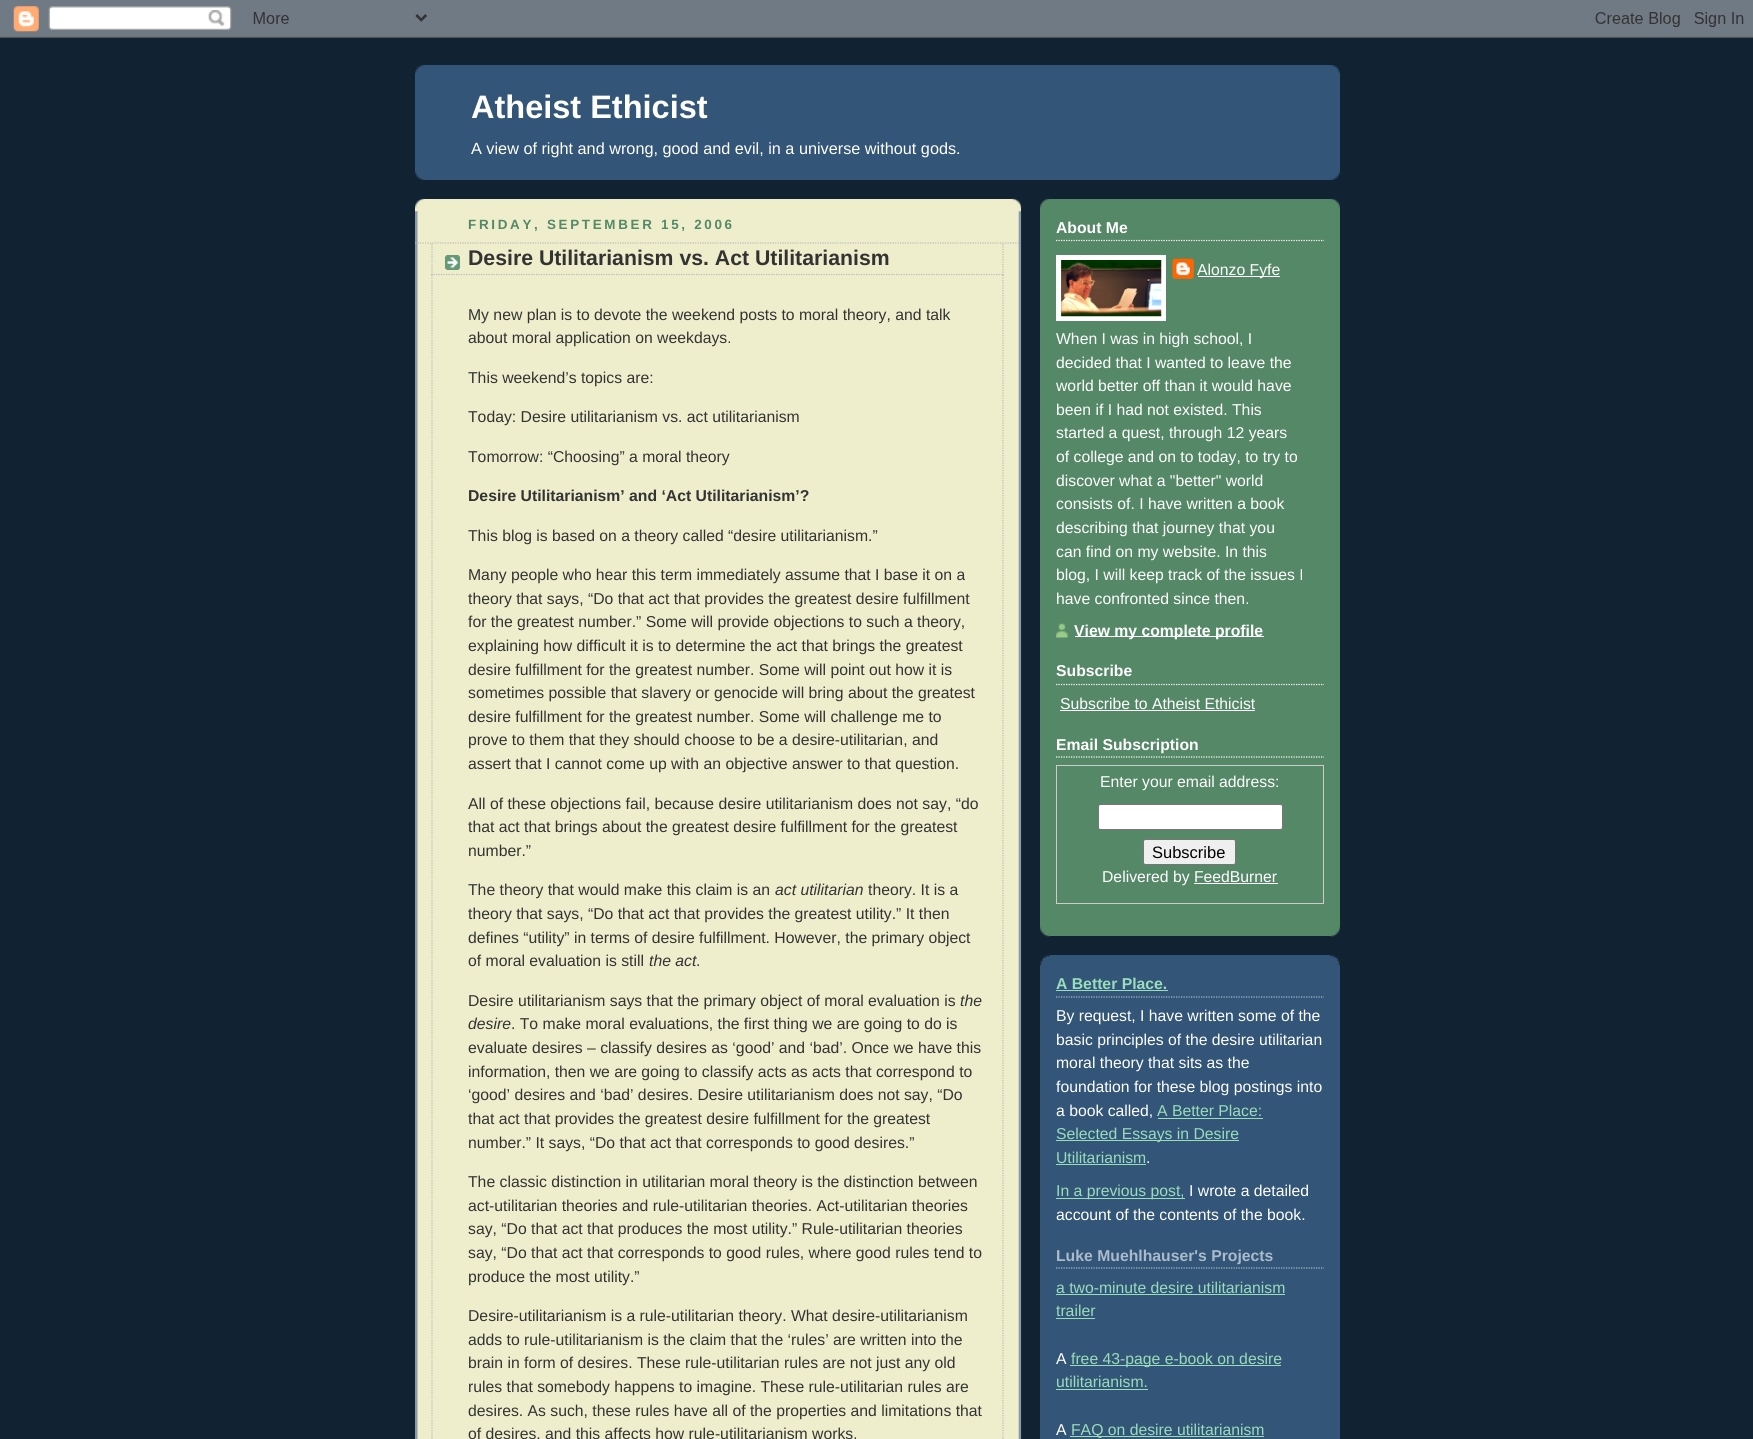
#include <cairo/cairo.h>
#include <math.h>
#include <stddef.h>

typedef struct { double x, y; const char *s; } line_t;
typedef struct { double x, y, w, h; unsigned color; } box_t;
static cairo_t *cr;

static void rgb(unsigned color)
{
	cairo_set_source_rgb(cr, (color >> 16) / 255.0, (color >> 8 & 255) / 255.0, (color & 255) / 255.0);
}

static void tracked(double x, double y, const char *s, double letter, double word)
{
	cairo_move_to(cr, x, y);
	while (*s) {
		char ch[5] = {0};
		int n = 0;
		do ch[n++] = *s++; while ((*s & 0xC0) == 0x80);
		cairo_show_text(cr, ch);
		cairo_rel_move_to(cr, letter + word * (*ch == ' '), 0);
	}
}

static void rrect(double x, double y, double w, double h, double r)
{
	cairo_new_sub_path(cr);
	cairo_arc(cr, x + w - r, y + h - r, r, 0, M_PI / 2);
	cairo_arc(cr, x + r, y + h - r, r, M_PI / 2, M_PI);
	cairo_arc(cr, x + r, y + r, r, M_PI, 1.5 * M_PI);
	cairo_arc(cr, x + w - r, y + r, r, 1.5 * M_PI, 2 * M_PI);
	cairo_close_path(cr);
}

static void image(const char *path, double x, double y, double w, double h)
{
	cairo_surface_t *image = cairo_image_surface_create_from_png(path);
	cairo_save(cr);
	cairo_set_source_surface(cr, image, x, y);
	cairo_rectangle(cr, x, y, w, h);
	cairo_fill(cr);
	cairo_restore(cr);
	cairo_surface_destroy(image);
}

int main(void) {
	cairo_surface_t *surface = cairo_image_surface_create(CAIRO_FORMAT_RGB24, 1753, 1439);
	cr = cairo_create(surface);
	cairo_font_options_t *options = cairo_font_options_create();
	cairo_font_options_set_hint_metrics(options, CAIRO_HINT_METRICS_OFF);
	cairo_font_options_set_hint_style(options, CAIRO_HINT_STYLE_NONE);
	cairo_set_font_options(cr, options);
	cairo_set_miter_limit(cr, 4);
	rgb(0x112233);
	cairo_paint(cr);
	image("img/1.png", 0, 0, 1753, 38);
	rgb(0x335577);
	cairo_rectangle(cr, 415, 65, 925, 115);
	cairo_fill(cr);
	image("img/2.png", 415, 65, 925, 9);
	image("img/3.png", 415, 171, 925, 9);
	rgb(0xeeeecc);
	cairo_rectangle(cr, 415, 199, 606, 1240);
	cairo_fill(cr);
	image("img/4.png", 415, 198, 607, 11);
	image("img/5.png", 415, 211, 607, 1228);
	cairo_new_path(cr);
	cairo_move_to(cr, 415, 243);
	cairo_line_to(cr, 1020, 243);
	rgb(0xbbbbbb);
	cairo_set_line_width(cr, 1.2);
	cairo_set_dash(cr, (double[]){1.25, 1.25}, 2, 0);
	cairo_stroke(cr);
	image("img/6.png", 445, 255, 15, 15);
	cairo_new_path(cr);
	cairo_move_to(cr, 1003, 244);
	cairo_line_to(cr, 1003, 275);
	cairo_stroke(cr);
	cairo_new_path(cr);
	cairo_move_to(cr, 431, 274.5);
	cairo_line_to(cr, 1004, 274.5);
	cairo_stroke(cr);
	cairo_new_path(cr);
	cairo_move_to(cr, 432, 244);
	cairo_line_to(cr, 432, 275);
	cairo_stroke(cr);
	cairo_new_path(cr);
	cairo_move_to(cr, 1003, 275);
	cairo_line_to(cr, 1003, 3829);
	cairo_stroke(cr);
	cairo_new_path(cr);
	cairo_move_to(cr, 432, 275);
	cairo_line_to(cr, 432, 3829);
	cairo_stroke(cr);
	rgb(0x558866);
	cairo_rectangle(cr, 1040, 199, 300, 737);
	cairo_fill(cr);
	image("img/7.png", 1040, 926, 300, 11);
	image("img/8.png", 1040, 198, 300, 11);
	cairo_new_path(cr);
	cairo_move_to(cr, 1056, 240.5);
	cairo_line_to(cr, 1324, 240.5);
	rgb(0xffffff);
	cairo_stroke(cr);
	cairo_rectangle(cr, 1058.5, 257.5, 105, 61);
	cairo_set_line_width(cr, 5);
	cairo_set_dash(cr, NULL, 0, 0);
	cairo_stroke(cr);
	image("img/9.png", 1061, 260, 101, 57);
	image("img/10.png", 1172, 258, 22, 21);
	cairo_rectangle(cr, 1198, 276, 82, 1);
	cairo_fill(cr);
	image("img/11.png", 1056, 623, 12, 15);
	cairo_rectangle(cr, 1075, 636, 189, 1);
	cairo_fill(cr);
	cairo_new_path(cr);
	cairo_move_to(cr, 1056, 684.5);
	cairo_line_to(cr, 1324, 684.5);
	cairo_set_line_width(cr, 1.2);
	cairo_set_dash(cr, (double[]){1.25, 1.25}, 2, 0);
	cairo_stroke(cr);
	cairo_rectangle(cr, 1060, 710, 195, 1);
	cairo_fill(cr);
	cairo_new_path(cr);
	cairo_move_to(cr, 1056, 757);
	cairo_line_to(cr, 1324, 757);
	cairo_stroke(cr);
	cairo_rectangle(cr, 1056.5, 765.5, 267, 138);
	rgb(0xcccccc);
	cairo_set_line_width(cr, 1);
	cairo_set_dash(cr, NULL, 0, 0);
	cairo_stroke(cr);
	rgb(0xffffff);
	rrect(1098.5, 804.5, 184, 25, 2);
	cairo_fill_preserve(cr);
	rgb(0x767676);
	cairo_stroke(cr);
	rgb(0xefefef);
	rrect(1143.5, 839.5, 92, 25, 2);
	cairo_fill_preserve(cr);
	rgb(0x767676);
	cairo_stroke(cr);
	rgb(0xffffff);
	cairo_rectangle(cr, 1194, 883, 84, 1);
	cairo_fill(cr);
	rgb(0x335577);
	cairo_rectangle(cr, 1040, 955, 300, 484);
	cairo_fill(cr);
	image("img/12.png", 1040, 955, 300, 11);
	cairo_new_path(cr);
	cairo_move_to(cr, 1056, 997);
	cairo_line_to(cr, 1324, 997);
	rgb(0xaabbcc);
	cairo_set_line_width(cr, 1.2);
	cairo_set_dash(cr, (double[]){1.25, 1.25}, 2, 0);
	cairo_stroke(cr);
	{
		static const box_t items[] = {
			{1056, 990, 112, 1, 0x99ddbb},
			{1158, 1118, 105, 1, 0x99ddbb},
			{1056, 1140, 183, 1, 0x99ddbb},
			{1056, 1164, 90, 1, 0x99ddbb},
			{1056, 1198, 129, 1, 0x99ddbb},
		};
		for (size_t i = 0; i < sizeof items / sizeof *items; i++) {
			rgb(items[i].color);
			cairo_rectangle(cr, items[i].x, items[i].y, items[i].w, items[i].h);
			cairo_fill(cr);
		}
	}
	cairo_new_path(cr);
	cairo_move_to(cr, 1056, 1268);
	cairo_line_to(cr, 1324, 1268);
	rgb(0xaabbcc);
	cairo_stroke(cr);
	{
		static const box_t items[] = {
			{1056, 1294, 229, 1, 0x99ddbb},
			{1056, 1318, 39, 1, 0x99ddbb},
			{1070, 1365, 211, 1, 0x99ddbb},
			{1056, 1389, 92, 1, 0x99ddbb},
			{1070, 1436, 194, 1, 0x99ddbb},
		};
		for (size_t i = 0; i < sizeof items / sizeof *items; i++) {
			rgb(items[i].color);
			cairo_rectangle(cr, items[i].x, items[i].y, items[i].w, items[i].h);
			cairo_fill(cr);
		}
	}
	cairo_select_font_face(cr, "Liberation Sans", CAIRO_FONT_SLANT_NORMAL, CAIRO_FONT_WEIGHT_BOLD);
	cairo_set_font_size(cr, 32.5);
	rgb(0xffffff);
	cairo_move_to(cr, 471, 118);
	cairo_show_text(cr, "Atheist Ethicist");
	cairo_select_font_face(cr, "Liberation Sans", CAIRO_FONT_SLANT_NORMAL, CAIRO_FONT_WEIGHT_NORMAL);
	cairo_set_font_size(cr, 16.25);
	cairo_move_to(cr, 471, 154);
	cairo_show_text(cr, "A view of right and wrong, good and evil, in a universe without gods.");
	cairo_select_font_face(cr, "Liberation Sans", CAIRO_FONT_SLANT_NORMAL, CAIRO_FONT_WEIGHT_BOLD);
	cairo_set_font_size(cr, 13.4);
	rgb(0x558866);
	tracked(468, 229, "FRIDAY, SEPTEMBER 15, 2006", 2.7, 0);
	cairo_set_font_size(cr, 21.25);
	rgb(0x333333);
	cairo_move_to(cr, 468, 265);
	cairo_show_text(cr, "Desire Utilitarianism vs. Act Utilitarianism");
	cairo_select_font_face(cr, "Liberation Sans", CAIRO_FONT_SLANT_NORMAL, CAIRO_FONT_WEIGHT_NORMAL);
	cairo_set_font_size(cr, 15.75);
	{
		static const line_t items[] = {
			{468, 320, "My new plan is to devote the weekend posts to moral theory, and talk"},
			{468, 343, "about moral application on weekdays."},
			{468, 383, "This weekend’s topics are:"},
			{468, 422, "Today: Desire utilitarianism vs. act utilitarianism"},
			{468, 462, "Tomorrow: “Choosing” a moral theory"},
		};
		for (size_t i = 0; i < sizeof items / sizeof *items; i++) {
			cairo_move_to(cr, items[i].x, items[i].y);
			cairo_show_text(cr, items[i].s);
		}
	}
	cairo_select_font_face(cr, "Liberation Sans", CAIRO_FONT_SLANT_NORMAL, CAIRO_FONT_WEIGHT_BOLD);
	cairo_move_to(cr, 468, 501);
	cairo_show_text(cr, "Desire Utilitarianism’ and ‘Act Utilitarianism’?");
	cairo_select_font_face(cr, "Liberation Sans", CAIRO_FONT_SLANT_NORMAL, CAIRO_FONT_WEIGHT_NORMAL);
	{
		static const line_t items[] = {
			{468, 541, "This blog is based on a theory called “desire utilitarianism.”"},
			{468, 580, "Many people who hear this term immediately assume that I base it on a"},
			{468, 604, "theory that says, “Do that act that provides the greatest desire fulfillment"},
			{468, 627, "for the greatest number.” Some will provide objections to such a theory,"},
			{468, 651, "explaining how difficult it is to determine the act that brings the greatest"},
			{468, 675, "desire fulfillment for the greatest number. Some will point out how it is"},
			{468, 698, "sometimes possible that slavery or genocide will bring about the greatest"},
			{468, 722, "desire fulfillment for the greatest number. Some will challenge me to"},
			{468, 745, "prove to them that they should choose to be a desire-utilitarian, and"},
			{468, 769, "assert that I cannot come up with an objective answer to that question."},
			{468, 809, "All of these objections fail, because desire utilitarianism does not say, “do"},
			{468, 832, "that act that brings about the greatest desire fulfillment for the greatest"},
			{468, 856, "number.”"},
			{468, 895, "The theory that would make this claim is an"},
		};
		for (size_t i = 0; i < sizeof items / sizeof *items; i++) {
			cairo_move_to(cr, items[i].x, items[i].y);
			cairo_show_text(cr, items[i].s);
		}
	}
	cairo_select_font_face(cr, "Liberation Sans", CAIRO_FONT_SLANT_ITALIC, CAIRO_FONT_WEIGHT_NORMAL);
	cairo_move_to(cr, 775, 895);
	cairo_show_text(cr, "act utilitarian");
	cairo_select_font_face(cr, "Liberation Sans", CAIRO_FONT_SLANT_NORMAL, CAIRO_FONT_WEIGHT_NORMAL);
	{
		static const line_t items[] = {
			{868, 895, "theory. It is a"},
			{468, 919, "theory that says, “Do that act that provides the greatest utility.” It then"},
			{468, 943, "defines “utility” in terms of desire fulfillment. However, the primary object"},
			{468, 966, "of moral evaluation is still"},
		};
		for (size_t i = 0; i < sizeof items / sizeof *items; i++) {
			cairo_move_to(cr, items[i].x, items[i].y);
			cairo_show_text(cr, items[i].s);
		}
	}
	cairo_select_font_face(cr, "Liberation Sans", CAIRO_FONT_SLANT_ITALIC, CAIRO_FONT_WEIGHT_NORMAL);
	cairo_move_to(cr, 649, 966);
	cairo_show_text(cr, "the act");
	cairo_select_font_face(cr, "Liberation Sans", CAIRO_FONT_SLANT_NORMAL, CAIRO_FONT_WEIGHT_NORMAL);
	cairo_move_to(cr, 696, 966);
	cairo_show_text(cr, ".");
	cairo_move_to(cr, 468, 1006);
	cairo_show_text(cr, "Desire utilitarianism says that the primary object of moral evaluation is");
	cairo_select_font_face(cr, "Liberation Sans", CAIRO_FONT_SLANT_ITALIC, CAIRO_FONT_WEIGHT_NORMAL);
	cairo_move_to(cr, 960, 1006);
	cairo_show_text(cr, "the");
	cairo_move_to(cr, 468, 1029);
	cairo_show_text(cr, "desire");
	cairo_select_font_face(cr, "Liberation Sans", CAIRO_FONT_SLANT_NORMAL, CAIRO_FONT_WEIGHT_NORMAL);
	{
		static const line_t items[] = {
			{511, 1029, ". To make moral evaluations, the first thing we are going to do is"},
			{468, 1053, "evaluate desires – classify desires as ‘good’ and ‘bad’. Once we have this"},
			{468, 1077, "information, then we are going to classify acts as acts that correspond to"},
			{468, 1100, "‘good’ desires and ‘bad’ desires. Desire utilitarianism does not say, “Do"},
			{468, 1124, "that act that provides the greatest desire fulfillment for the greatest"},
			{468, 1148, "number.” It says, “Do that act that corresponds to good desires.”"},
			{468, 1187, "The classic distinction in utilitarian moral theory is the distinction between"},
			{468, 1211, "act-utilitarian theories and rule-utilitarian theories. Act-utilitarian theories"},
			{468, 1234, "say, “Do that act that produces the most utility.” Rule-utilitarian theories"},
			{468, 1258, "say, “Do that act that corresponds to good rules, where good rules tend to"},
			{468, 1282, "produce the most utility.”"},
			{468, 1321, "Desire-utilitarianism is a rule-utilitarian theory. What desire-utilitarianism"},
			{468, 1345, "adds to rule-utilitarianism is the claim that the ‘rules’ are written into the"},
			{468, 1368, "brain in form of desires. These rule-utilitarian rules are not just any old"},
			{468, 1392, "rules that somebody happens to imagine. These rule-utilitarian rules are"},
			{468, 1416, "desires. As such, these rules have all of the properties and limitations that"},
			{468, 1439, "of desires, and this affects how rule-utilitarianism works."},
		};
		for (size_t i = 0; i < sizeof items / sizeof *items; i++) {
			cairo_move_to(cr, items[i].x, items[i].y);
			cairo_show_text(cr, items[i].s);
		}
	}
	cairo_select_font_face(cr, "Liberation Sans", CAIRO_FONT_SLANT_NORMAL, CAIRO_FONT_WEIGHT_BOLD);
	rgb(0xffffff);
	cairo_move_to(cr, 1056, 233);
	cairo_show_text(cr, "About Me");
	cairo_select_font_face(cr, "Liberation Sans", CAIRO_FONT_SLANT_NORMAL, CAIRO_FONT_WEIGHT_NORMAL);
	{
		static const line_t items[] = {
			{1197, 275, "Alonzo Fyfe"},
			{1056, 344, "When I was in high school, I"},
			{1056, 368, "decided that I wanted to leave the"},
			{1056, 391, "world better off than it would have"},
			{1056, 415, "been if I had not existed. This"},
			{1056, 438, "started a quest, through 12 years"},
			{1056, 462, "of college and on to today, to try to"},
			{1056, 486, "discover what a \"better\" world"},
			{1056, 509, "consists of. I have written a book"},
			{1056, 533, "describing that journey that you"},
			{1056, 557, "can find on my website. In this"},
			{1056, 580, "blog, I will keep track of the issues I"},
			{1056, 604, "have confronted since then."},
		};
		for (size_t i = 0; i < sizeof items / sizeof *items; i++) {
			cairo_move_to(cr, items[i].x, items[i].y);
			cairo_show_text(cr, items[i].s);
		}
	}
	cairo_select_font_face(cr, "Liberation Sans", CAIRO_FONT_SLANT_NORMAL, CAIRO_FONT_WEIGHT_BOLD);
	cairo_move_to(cr, 1074, 636);
	cairo_show_text(cr, "View my complete profile");
	cairo_move_to(cr, 1056, 676);
	cairo_show_text(cr, "Subscribe");
	cairo_select_font_face(cr, "Liberation Sans", CAIRO_FONT_SLANT_NORMAL, CAIRO_FONT_WEIGHT_NORMAL);
	cairo_move_to(cr, 1060, 709);
	cairo_show_text(cr, "Subscribe to Atheist Ethicist");
	cairo_select_font_face(cr, "Liberation Sans", CAIRO_FONT_SLANT_NORMAL, CAIRO_FONT_WEIGHT_BOLD);
	cairo_move_to(cr, 1056, 750);
	cairo_show_text(cr, "Email Subscription");
	cairo_select_font_face(cr, "Liberation Sans", CAIRO_FONT_SLANT_NORMAL, CAIRO_FONT_WEIGHT_NORMAL);
	cairo_move_to(cr, 1100, 787);
	cairo_show_text(cr, "Enter your email address:");
	cairo_set_font_size(cr, 16.5);
	rgb(0x000000);
	cairo_move_to(cr, 1152, 858);
	cairo_show_text(cr, "Subscribe");
	cairo_set_font_size(cr, 15.75);
	rgb(0xffffff);
	cairo_move_to(cr, 1102, 882);
	cairo_show_text(cr, "Delivered by FeedBurner");
	cairo_select_font_face(cr, "Liberation Sans", CAIRO_FONT_SLANT_NORMAL, CAIRO_FONT_WEIGHT_BOLD);
	rgb(0x99ddbb);
	cairo_move_to(cr, 1056, 989);
	cairo_show_text(cr, "A Better Place.");
	cairo_select_font_face(cr, "Liberation Sans", CAIRO_FONT_SLANT_NORMAL, CAIRO_FONT_WEIGHT_NORMAL);
	rgb(0xffffff);
	{
		static const line_t items[] = {
			{1056, 1021, "By request, I have written some of the"},
			{1056, 1045, "basic principles of the desire utilitarian"},
			{1056, 1068, "moral theory that sits as the"},
			{1056, 1092, "foundation for these blog postings into"},
			{1056, 1116, "a book called,"},
		};
		for (size_t i = 0; i < sizeof items / sizeof *items; i++) {
			cairo_move_to(cr, items[i].x, items[i].y);
			cairo_show_text(cr, items[i].s);
		}
	}
	rgb(0x99ddbb);
	{
		static const line_t items[] = {
			{1157, 1116, "A Better Place:"},
			{1056, 1139, "Selected Essays in Desire"},
			{1056, 1163, "Utilitarianism"},
		};
		for (size_t i = 0; i < sizeof items / sizeof *items; i++) {
			cairo_move_to(cr, items[i].x, items[i].y);
			cairo_show_text(cr, items[i].s);
		}
	}
	rgb(0xffffff);
	cairo_move_to(cr, 1146, 1163);
	cairo_show_text(cr, ".");
	rgb(0x99ddbb);
	cairo_move_to(cr, 1056, 1196);
	cairo_show_text(cr, "In a previous post,");
	rgb(0xffffff);
	cairo_move_to(cr, 1189, 1196);
	cairo_show_text(cr, "I wrote a detailed");
	cairo_move_to(cr, 1056, 1220);
	cairo_show_text(cr, "account of the contents of the book.");
	cairo_select_font_face(cr, "Liberation Sans", CAIRO_FONT_SLANT_NORMAL, CAIRO_FONT_WEIGHT_BOLD);
	rgb(0xaabbcc);
	cairo_move_to(cr, 1056, 1261);
	cairo_show_text(cr, "Luke Muehlhauser's Projects");
	cairo_select_font_face(cr, "Liberation Sans", CAIRO_FONT_SLANT_NORMAL, CAIRO_FONT_WEIGHT_NORMAL);
	rgb(0x99ddbb);
	cairo_move_to(cr, 1056, 1293);
	cairo_show_text(cr, "a two-minute desire utilitarianism");
	cairo_move_to(cr, 1056, 1316);
	cairo_show_text(cr, "trailer");
	rgb(0xffffff);
	cairo_move_to(cr, 1056, 1364);
	cairo_show_text(cr, "A");
	rgb(0x99ddbb);
	cairo_move_to(cr, 1071, 1364);
	cairo_show_text(cr, "free 43-page e-book on desire");
	cairo_move_to(cr, 1056, 1387);
	cairo_show_text(cr, "utilitarianism.");
	rgb(0xffffff);
	cairo_move_to(cr, 1056, 1435);
	cairo_show_text(cr, "A");
	rgb(0x99ddbb);
	cairo_move_to(cr, 1071, 1435);
	cairo_show_text(cr, "FAQ on desire utilitarianism");
	cairo_surface_write_to_png(surface, "page.png");
	cairo_font_options_destroy(options);
	cairo_destroy(cr);
	cairo_surface_destroy(surface);
	return 0;
}
